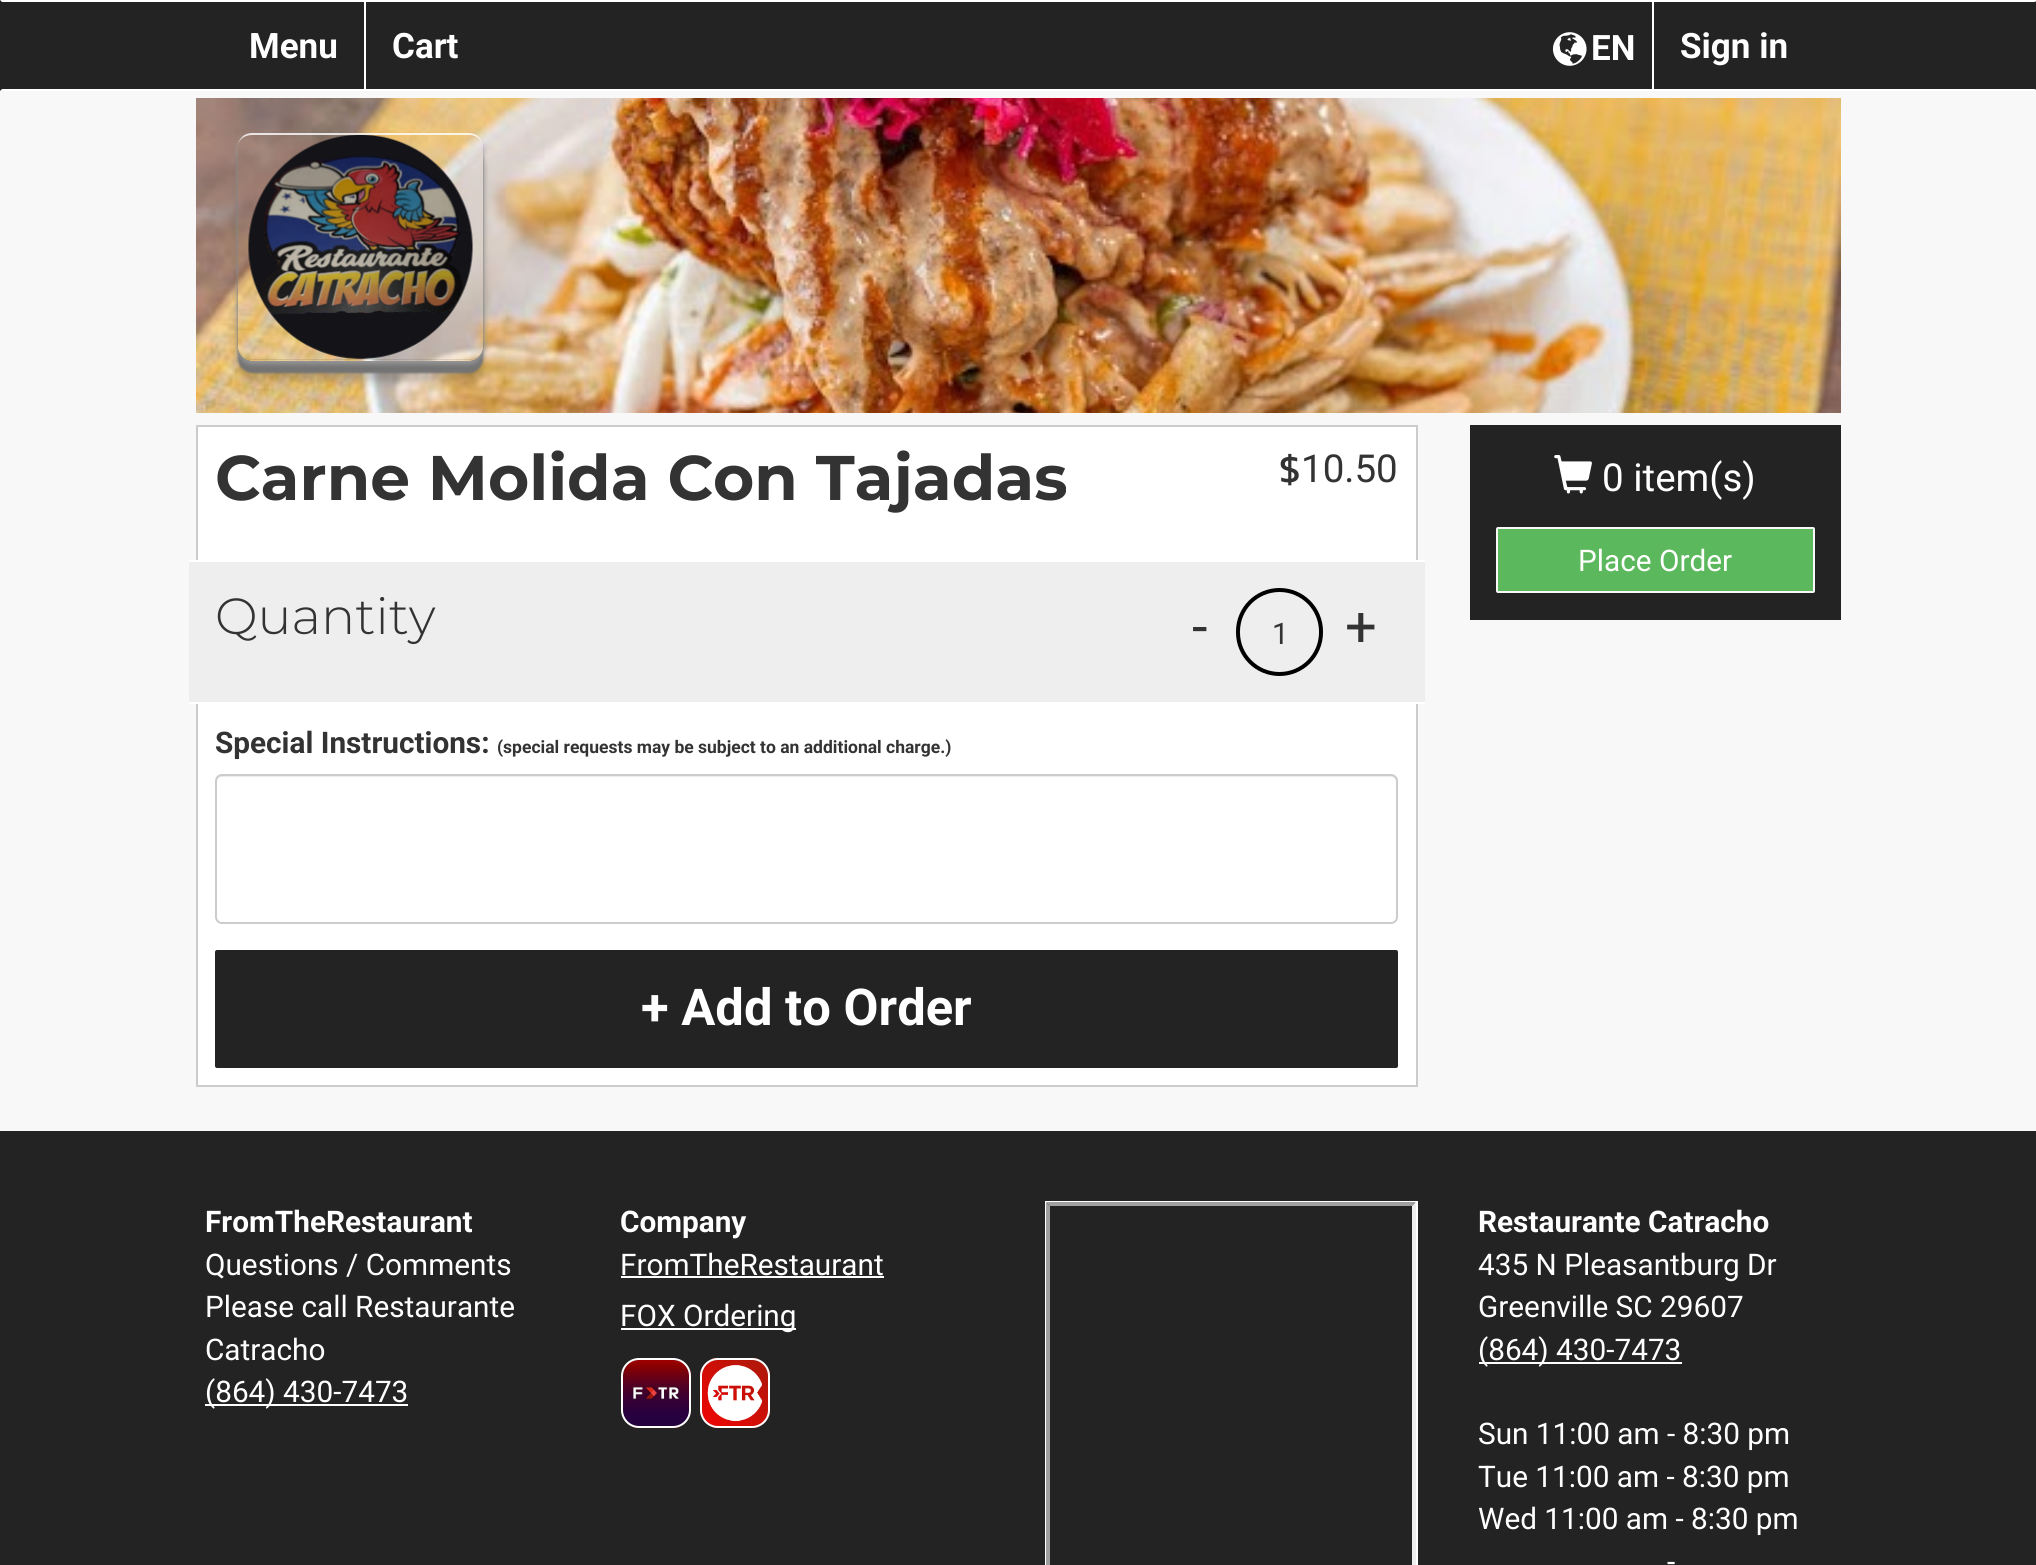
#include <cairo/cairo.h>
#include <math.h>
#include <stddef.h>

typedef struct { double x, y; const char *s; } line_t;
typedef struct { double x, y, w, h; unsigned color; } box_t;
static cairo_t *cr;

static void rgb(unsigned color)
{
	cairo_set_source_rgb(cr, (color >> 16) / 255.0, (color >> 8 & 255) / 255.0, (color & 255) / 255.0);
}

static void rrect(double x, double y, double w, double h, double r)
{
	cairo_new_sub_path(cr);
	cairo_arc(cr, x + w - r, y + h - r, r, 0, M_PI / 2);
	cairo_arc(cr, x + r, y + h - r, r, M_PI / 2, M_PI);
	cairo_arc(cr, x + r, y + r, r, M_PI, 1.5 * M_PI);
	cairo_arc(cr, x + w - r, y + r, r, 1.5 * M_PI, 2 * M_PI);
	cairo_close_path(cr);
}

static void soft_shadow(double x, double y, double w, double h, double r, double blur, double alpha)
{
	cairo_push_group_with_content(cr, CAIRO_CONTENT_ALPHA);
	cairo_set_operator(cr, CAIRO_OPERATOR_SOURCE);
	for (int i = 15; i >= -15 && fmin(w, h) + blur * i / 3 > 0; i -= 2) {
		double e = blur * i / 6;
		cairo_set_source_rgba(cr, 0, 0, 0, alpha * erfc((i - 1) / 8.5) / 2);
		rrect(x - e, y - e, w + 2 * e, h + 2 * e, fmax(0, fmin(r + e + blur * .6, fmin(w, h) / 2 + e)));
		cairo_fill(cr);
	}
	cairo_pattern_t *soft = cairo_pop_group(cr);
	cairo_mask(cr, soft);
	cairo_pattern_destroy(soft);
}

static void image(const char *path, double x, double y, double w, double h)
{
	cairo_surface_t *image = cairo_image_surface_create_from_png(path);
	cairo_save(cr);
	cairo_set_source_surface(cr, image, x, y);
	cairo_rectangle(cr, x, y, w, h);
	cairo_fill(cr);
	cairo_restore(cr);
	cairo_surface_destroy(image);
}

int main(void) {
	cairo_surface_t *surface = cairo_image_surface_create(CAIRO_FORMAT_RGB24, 2036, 1565);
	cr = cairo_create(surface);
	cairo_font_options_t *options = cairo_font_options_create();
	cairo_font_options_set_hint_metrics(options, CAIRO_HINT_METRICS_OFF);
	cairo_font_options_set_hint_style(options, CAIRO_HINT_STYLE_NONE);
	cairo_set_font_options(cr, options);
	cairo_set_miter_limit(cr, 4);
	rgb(0xf8f8f8);
	cairo_paint(cr);
	rgb(0x232323);
	cairo_rectangle(cr, 0, 0, 2036, 91);
	cairo_fill(cr);
	rgb(0xffffff);
	cairo_new_path(cr);
	cairo_move_to(cr, 0, 0);
	cairo_line_to(cr, 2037, 0);
	cairo_line_to(cr, 2035, 2);
	cairo_line_to(cr, 2, 2);
	cairo_close_path(cr);
	cairo_fill(cr);
	cairo_new_path(cr);
	cairo_move_to(cr, 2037, 91);
	cairo_line_to(cr, 0, 91);
	cairo_line_to(cr, 2, 89);
	cairo_line_to(cr, 2035, 89);
	cairo_close_path(cr);
	cairo_fill(cr);
	cairo_rectangle(cr, 364, 2, 2, 87);
	cairo_fill(cr);
	image("img/1.png", 1552, 32, 35, 34);
	cairo_rectangle(cr, 1652, 2, 2, 87);
	cairo_fill(cr);
	image("img/2.png", 196, 98, 1645, 315);
	cairo_save(cr);
	cairo_set_fill_rule(cr, CAIRO_FILL_RULE_EVEN_ODD);
	cairo_new_path(cr);
	cairo_move_to(cr, 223, 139);
	cairo_line_to(cr, 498, 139);
	cairo_line_to(cr, 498, 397);
	cairo_line_to(cr, 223, 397);
	cairo_close_path(cr);
	cairo_move_to(cr, 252, 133);
	cairo_line_to(cr, 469, 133);
	cairo_curve_to(cr, 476.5, 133, 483, 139.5, 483, 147);
	cairo_line_to(cr, 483, 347);
	cairo_curve_to(cr, 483, 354.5, 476.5, 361, 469, 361);
	cairo_line_to(cr, 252, 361);
	cairo_curve_to(cr, 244.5, 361, 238, 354.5, 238, 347);
	cairo_line_to(cr, 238, 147);
	cairo_curve_to(cr, 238, 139.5, 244.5, 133, 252, 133);
	cairo_close_path(cr);
	cairo_clip(cr);
	rgb(0x000000);
	soft_shadow(238, 154, 245, 228, 14, 4.5, 0.2);
	cairo_restore(cr);
	cairo_save(cr);
	cairo_set_fill_rule(cr, CAIRO_FILL_RULE_EVEN_ODD);
	cairo_new_path(cr);
	cairo_move_to(cr, 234, 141);
	cairo_line_to(cr, 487, 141);
	cairo_line_to(cr, 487, 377);
	cairo_line_to(cr, 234, 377);
	cairo_close_path(cr);
	cairo_move_to(cr, 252, 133);
	cairo_line_to(cr, 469, 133);
	cairo_curve_to(cr, 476.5, 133, 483, 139.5, 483, 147);
	cairo_line_to(cr, 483, 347);
	cairo_curve_to(cr, 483, 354.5, 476.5, 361, 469, 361);
	cairo_line_to(cr, 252, 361);
	cairo_curve_to(cr, 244.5, 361, 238, 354.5, 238, 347);
	cairo_line_to(cr, 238, 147);
	cairo_curve_to(cr, 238, 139.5, 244.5, 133, 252, 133);
	cairo_close_path(cr);
	cairo_clip(cr);
	rgb(0x737373);
	soft_shadow(238, 145, 245, 228, 14, 1, 1);
	cairo_restore(cr);
	cairo_save(cr);
	cairo_set_fill_rule(cr, CAIRO_FILL_RULE_EVEN_ODD);
	cairo_new_path(cr);
	cairo_move_to(cr, 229, 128);
	cairo_line_to(cr, 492, 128);
	cairo_line_to(cr, 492, 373);
	cairo_line_to(cr, 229, 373);
	cairo_close_path(cr);
	cairo_move_to(cr, 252, 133);
	cairo_line_to(cr, 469, 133);
	cairo_curve_to(cr, 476.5, 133, 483, 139.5, 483, 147);
	cairo_line_to(cr, 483, 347);
	cairo_curve_to(cr, 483, 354.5, 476.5, 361, 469, 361);
	cairo_line_to(cr, 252, 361);
	cairo_curve_to(cr, 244.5, 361, 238, 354.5, 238, 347);
	cairo_line_to(cr, 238, 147);
	cairo_curve_to(cr, 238, 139.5, 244.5, 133, 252, 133);
	cairo_close_path(cr);
	cairo_clip(cr);
	rgb(0x999999);
	soft_shadow(238, 137, 245, 227, 14, 2.5, 1);
	cairo_restore(cr);
	image("img/3.png", 248, 134, 225, 225);
	cairo_set_source_rgba(cr, 1, 1, 1, 0.8);
	cairo_new_path(cr);
	cairo_move_to(cr, 252, 133);
	cairo_curve_to(cr, 244, 133, 238, 139, 238, 147);
	cairo_curve_to(cr, 238, 140, 244, 135, 252, 135);
	cairo_line_to(cr, 469, 135);
	cairo_curve_to(cr, 477, 135, 483, 140, 483, 147);
	cairo_curve_to(cr, 483, 139, 477, 133, 469, 133);
	cairo_close_path(cr);
	cairo_fill(cr);
	cairo_set_source_rgba(cr, 0, 0, 0, 0.1);
	cairo_new_path(cr);
	cairo_move_to(cr, 469, 360);
	cairo_curve_to(cr, 477, 360, 483, 354, 483, 346);
	cairo_curve_to(cr, 483, 353, 477, 359, 469, 359);
	cairo_line_to(cr, 252, 359);
	cairo_curve_to(cr, 244, 359, 238, 353, 238, 346);
	cairo_curve_to(cr, 238, 354, 244, 360, 252, 360);
	cairo_close_path(cr);
	cairo_fill(cr);
	rgb(0xffffff);
	cairo_rectangle(cr, 197, 426, 1220, 660);
	cairo_fill_preserve(cr);
	rgb(0xcccccc);
	cairo_stroke(cr);
	{
		static const box_t items[] = {
			{189, 562, 1236, 140, 0xeeeeee},
			{189, 560, 1236, 2, 0xffffff},
			{189, 702, 1236, 2, 0xffffff},
		};
		for (size_t i = 0; i < sizeof items / sizeof *items; i++) {
			rgb(items[i].color);
			cairo_rectangle(cr, items[i].x, items[i].y, items[i].w, items[i].h);
			cairo_fill(cr);
		}
	}
	rrect(1238, 590, 83, 84, 41.5);
	rgb(0x000000);
	cairo_set_line_width(cr, 4);
	cairo_stroke(cr);
	rgb(0xececec);
	cairo_new_path(cr);
	cairo_move_to(cr, 222, 777);
	cairo_line_to(cr, 1391, 777);
	cairo_curve_to(cr, 1394, 777, 1396, 779, 1396, 782);
	cairo_line_to(cr, 1396, 920);
	cairo_curve_to(cr, 1397, 919, 1397, 918, 1397, 917);
	cairo_line_to(cr, 1397, 780);
	cairo_curve_to(cr, 1397, 777, 1395, 775, 1392, 775);
	cairo_line_to(cr, 222, 775);
	cairo_curve_to(cr, 219, 775, 217, 777, 217, 780);
	cairo_line_to(cr, 217, 782);
	cairo_curve_to(cr, 217, 779, 219, 777, 222, 777);
	cairo_close_path(cr);
	cairo_fill(cr);
	rrect(216, 775, 1181, 148, 6);
	rgb(0xcccccc);
	cairo_set_line_width(cr, 2);
	cairo_stroke(cr);
	rgb(0x232323);
	rrect(215, 950, 1183, 118, 2);
	cairo_fill(cr);
	cairo_rectangle(cr, 1470, 425, 371, 195);
	cairo_fill(cr);
	image("img/4.png", 1554, 455, 38, 39);
	rgb(0x5cb85c);
	rrect(1497, 528, 317, 64, 1);
	cairo_fill_preserve(cr);
	rgb(0xf8f8f8);
	cairo_stroke(cr);
	{
		static const box_t items[] = {
			{0, 1131, 2036, 434, 0x232323},
			{205, 1404, 203, 2, 0xffffff},
			{621, 1276, 263, 2, 0xffffff},
			{621, 1328, 175, 2, 0xffffff},
		};
		for (size_t i = 0; i < sizeof items / sizeof *items; i++) {
			rgb(items[i].color);
			cairo_rectangle(cr, items[i].x, items[i].y, items[i].w, items[i].h);
			cairo_fill(cr);
		}
	}
	image("img/5.png", 621, 1358, 71, 70);
	rrect(622, 1359, 68, 68, 17);
	cairo_stroke(cr);
	image("img/6.png", 700, 1358, 70, 70);
	rrect(701, 1359, 68, 68, 17);
	cairo_stroke(cr);
	cairo_rectangle(cr, 1046, 1202, 371, 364);
	cairo_stroke(cr);
	rgb(0x9f9f9f);
	cairo_new_path(cr);
	cairo_move_to(cr, 1046, 1202);
	cairo_line_to(cr, 1416, 1202);
	cairo_line_to(cr, 1412, 1206);
	cairo_line_to(cr, 1050, 1206);
	cairo_close_path(cr);
	cairo_fill(cr);
	cairo_new_path(cr);
	cairo_move_to(cr, 1046, 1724);
	cairo_line_to(cr, 1046, 1202);
	cairo_line_to(cr, 1050, 1206);
	cairo_line_to(cr, 1050, 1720);
	cairo_close_path(cr);
	cairo_fill(cr);
	rgb(0xeeeeee);
	cairo_new_path(cr);
	cairo_move_to(cr, 1416, 1202);
	cairo_line_to(cr, 1416, 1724);
	cairo_line_to(cr, 1412, 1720);
	cairo_line_to(cr, 1412, 1206);
	cairo_close_path(cr);
	cairo_fill(cr);
	rgb(0xffffff);
	cairo_rectangle(cr, 1479, 1362, 203, 2);
	cairo_fill(cr);
	cairo_select_font_face(cr, "Roboto", CAIRO_FONT_SLANT_NORMAL, CAIRO_FONT_WEIGHT_BOLD);
	cairo_set_font_size(cr, 35);
	{
		static const line_t items[] = {
			{249, 58, "Menu"},
			{392, 58, "Cart"},
			{1591, 60, "EN"},
			{1680, 58, "Sign in"},
		};
		for (size_t i = 0; i < sizeof items / sizeof *items; i++) {
			cairo_move_to(cr, items[i].x, items[i].y);
			cairo_show_text(cr, items[i].s);
		}
	}
	cairo_select_font_face(cr, "Montserrat", CAIRO_FONT_SLANT_NORMAL, CAIRO_FONT_WEIGHT_BOLD);
	cairo_set_font_size(cr, 63);
	rgb(0x333333);
	cairo_move_to(cr, 215, 500);
	cairo_show_text(cr, "Carne Molida Con Tajadas");
	cairo_select_font_face(cr, "Kanit", CAIRO_FONT_SLANT_NORMAL, CAIRO_FONT_WEIGHT_NORMAL);
	cairo_set_font_size(cr, 38.5);
	cairo_move_to(cr, 1279, 482);
	cairo_show_text(cr, "$");
	cairo_select_font_face(cr, "Roboto", CAIRO_FONT_SLANT_NORMAL, CAIRO_FONT_WEIGHT_NORMAL);
	cairo_move_to(cr, 1301, 482);
	cairo_show_text(cr, "10.50");
	cairo_select_font_face(cr, "Montserrat Light", CAIRO_FONT_SLANT_NORMAL, CAIRO_FONT_WEIGHT_NORMAL);
	cairo_set_font_size(cr, 50.75);
	cairo_move_to(cr, 215, 634);
	cairo_show_text(cr, "Quantity");
	cairo_select_font_face(cr, "Roboto", CAIRO_FONT_SLANT_NORMAL, CAIRO_FONT_WEIGHT_NORMAL);
	cairo_set_font_size(cr, 56);
	cairo_move_to(cr, 1192, 646);
	cairo_show_text(cr, "-");
	cairo_set_font_size(cr, 29.75);
	cairo_move_to(cr, 1272, 644);
	cairo_show_text(cr, "1");
	cairo_set_font_size(cr, 56);
	cairo_move_to(cr, 1345, 646);
	cairo_show_text(cr, "+");
	cairo_select_font_face(cr, "Roboto", CAIRO_FONT_SLANT_NORMAL, CAIRO_FONT_WEIGHT_BOLD);
	cairo_set_font_size(cr, 29.75);
	cairo_move_to(cr, 215, 753);
	cairo_show_text(cr, "Special Instructions:");
	cairo_set_font_size(cr, 17.5);
	cairo_move_to(cr, 497, 753);
	cairo_show_text(cr, "(special requests may be subject to an additional charge.)");
	cairo_set_font_size(cr, 50.75);
	rgb(0xffffff);
	cairo_move_to(cr, 641, 1025);
	cairo_show_text(cr, "+ Add to Order");
	cairo_select_font_face(cr, "Roboto", CAIRO_FONT_SLANT_NORMAL, CAIRO_FONT_WEIGHT_NORMAL);
	cairo_set_font_size(cr, 38.5);
	cairo_move_to(cr, 1602, 491);
	cairo_show_text(cr, "0 item(s)");
	cairo_set_font_size(cr, 29.75);
	cairo_move_to(cr, 1578, 571);
	cairo_show_text(cr, "Place Order");
	cairo_select_font_face(cr, "Roboto", CAIRO_FONT_SLANT_NORMAL, CAIRO_FONT_WEIGHT_BOLD);
	cairo_move_to(cr, 205, 1232);
	cairo_show_text(cr, "FromTheRestaurant");
	cairo_select_font_face(cr, "Roboto", CAIRO_FONT_SLANT_NORMAL, CAIRO_FONT_WEIGHT_NORMAL);
	{
		static const line_t items[] = {
			{205, 1275, "Questions / Comments"},
			{205, 1317, "Please call Restaurante"},
			{205, 1360, "Catracho"},
			{205, 1402, "(864) 430-7473"},
		};
		for (size_t i = 0; i < sizeof items / sizeof *items; i++) {
			cairo_move_to(cr, items[i].x, items[i].y);
			cairo_show_text(cr, items[i].s);
		}
	}
	cairo_select_font_face(cr, "Roboto", CAIRO_FONT_SLANT_NORMAL, CAIRO_FONT_WEIGHT_BOLD);
	cairo_move_to(cr, 620, 1232);
	cairo_show_text(cr, "Company");
	cairo_select_font_face(cr, "Roboto", CAIRO_FONT_SLANT_NORMAL, CAIRO_FONT_WEIGHT_NORMAL);
	cairo_move_to(cr, 620, 1275);
	cairo_show_text(cr, "FromTheRestaurant");
	cairo_move_to(cr, 620, 1326);
	cairo_show_text(cr, "FOX Ordering");
	cairo_select_font_face(cr, "Roboto", CAIRO_FONT_SLANT_NORMAL, CAIRO_FONT_WEIGHT_BOLD);
	cairo_move_to(cr, 1478, 1232);
	cairo_show_text(cr, "Restaurante Catracho");
	cairo_select_font_face(cr, "Roboto", CAIRO_FONT_SLANT_NORMAL, CAIRO_FONT_WEIGHT_NORMAL);
	{
		static const line_t items[] = {
			{1478, 1275, "435 N Pleasantburg Dr"},
			{1478, 1317, "Greenville SC 29607"},
			{1478, 1360, "(864) 430-7473"},
			{1478, 1444, "Sun 11:00 am - 8:30 pm"},
			{1478, 1487, "Tue 11:00 am - 8:30 pm"},
			{1478, 1529, "Wed 11:00 am - 8:30 pm"},
			{1667, 1572, "-"},
		};
		for (size_t i = 0; i < sizeof items / sizeof *items; i++) {
			cairo_move_to(cr, items[i].x, items[i].y);
			cairo_show_text(cr, items[i].s);
		}
	}
	cairo_surface_write_to_png(surface, "page.png");
	cairo_font_options_destroy(options);
	cairo_destroy(cr);
	cairo_surface_destroy(surface);
	return 0;
}
